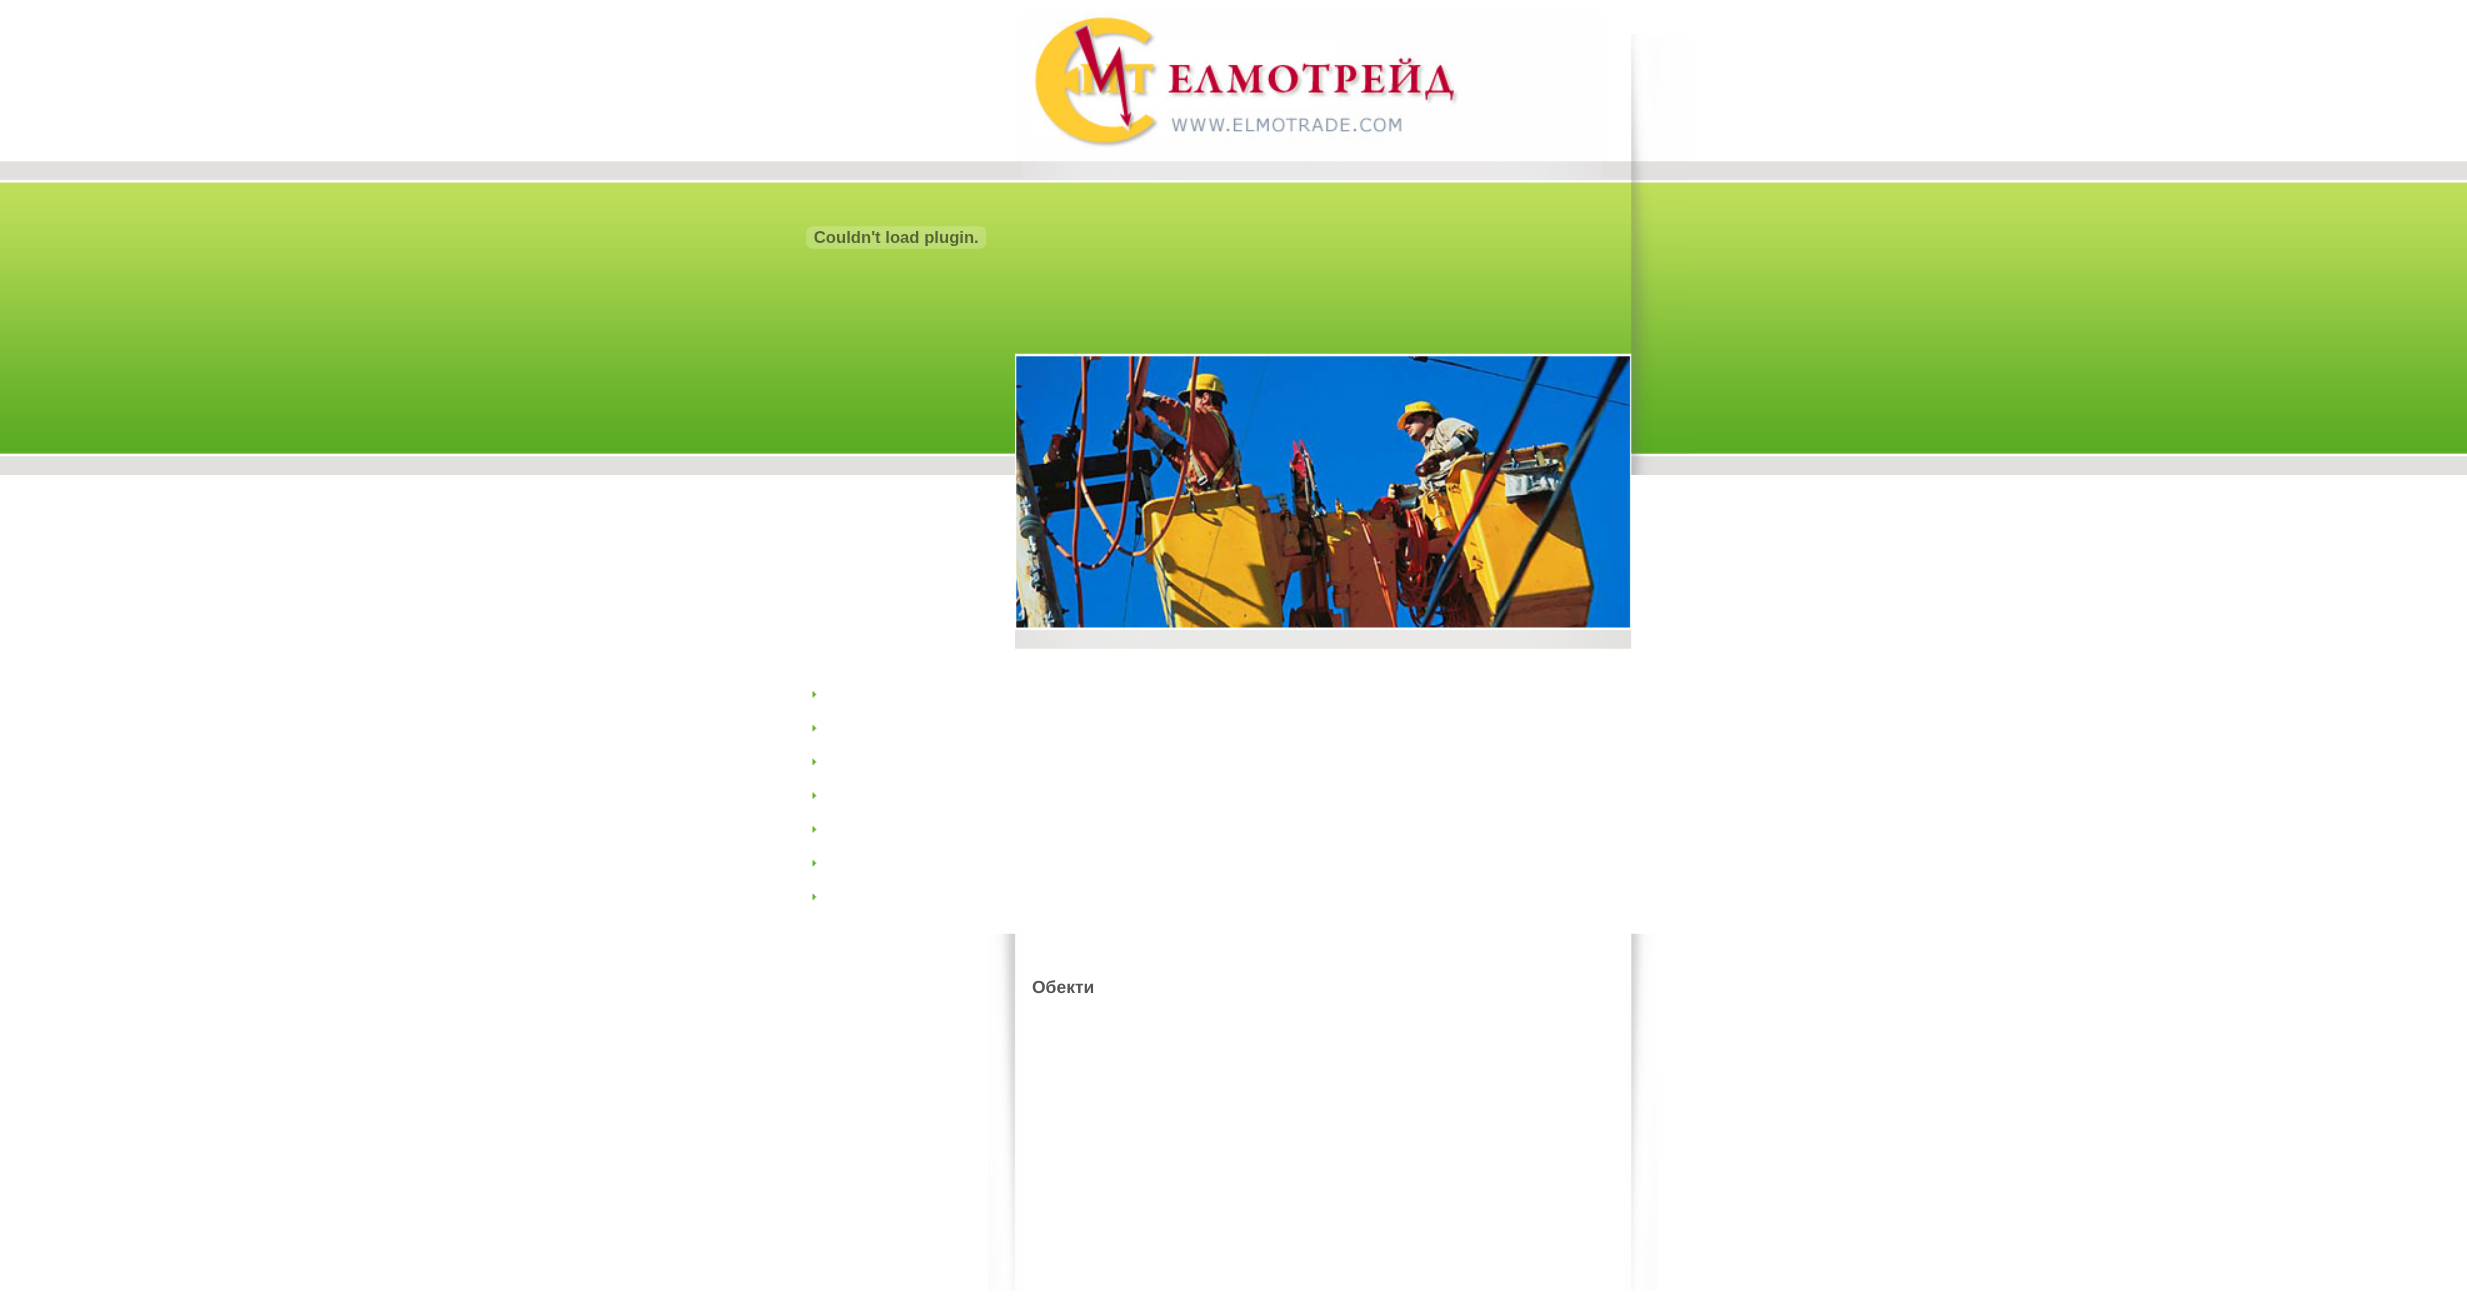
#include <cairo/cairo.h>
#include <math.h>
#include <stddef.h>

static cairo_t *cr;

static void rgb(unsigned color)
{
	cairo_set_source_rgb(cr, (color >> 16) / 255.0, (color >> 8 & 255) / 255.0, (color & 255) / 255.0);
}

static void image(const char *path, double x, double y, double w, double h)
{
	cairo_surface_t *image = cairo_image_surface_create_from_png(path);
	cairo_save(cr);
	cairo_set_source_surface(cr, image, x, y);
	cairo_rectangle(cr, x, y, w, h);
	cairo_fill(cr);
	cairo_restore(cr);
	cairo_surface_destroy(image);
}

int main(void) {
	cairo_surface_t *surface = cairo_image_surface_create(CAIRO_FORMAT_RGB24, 2467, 1300);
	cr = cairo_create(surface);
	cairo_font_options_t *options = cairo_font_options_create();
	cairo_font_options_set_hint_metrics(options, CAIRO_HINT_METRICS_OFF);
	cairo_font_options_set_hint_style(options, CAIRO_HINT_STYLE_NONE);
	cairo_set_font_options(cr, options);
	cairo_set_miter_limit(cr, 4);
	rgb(0xffffff);
	cairo_paint(cr);
	image("img/1.png", 0, 161, 2467, 314);
	image("img/2.png", 806, 226, 181, 23);
	image("img/3.png", 812, 691, 5, 7);
	image("img/4.png", 812, 724, 5, 8);
	image("img/5.png", 812, 758, 5, 8);
	image("img/6.png", 812, 792, 5, 7);
	image("img/3.png", 812, 826, 5, 7);
	image("img/4.png", 812, 859, 5, 8);
	image("img/5.png", 812, 893, 5, 8);
	image("img/7.png", 1022, 10, 580, 170);
	image("img/8.png", 1631, 34, 59, 441);
	image("img/9.png", 1015, 353, 617, 296);
	image("img/10.png", 988, 933, 669, 358);
	cairo_select_font_face(cr, "Liberation Sans", CAIRO_FONT_SLANT_NORMAL, CAIRO_FONT_WEIGHT_BOLD);
	cairo_set_font_size(cr, 17.5);
	rgb(0x565656);
	cairo_move_to(cr, 1032, 993);
	cairo_show_text(cr, "Обекти");
	cairo_surface_write_to_png(surface, "page.png");
	cairo_font_options_destroy(options);
	cairo_destroy(cr);
	cairo_surface_destroy(surface);
	return 0;
}
